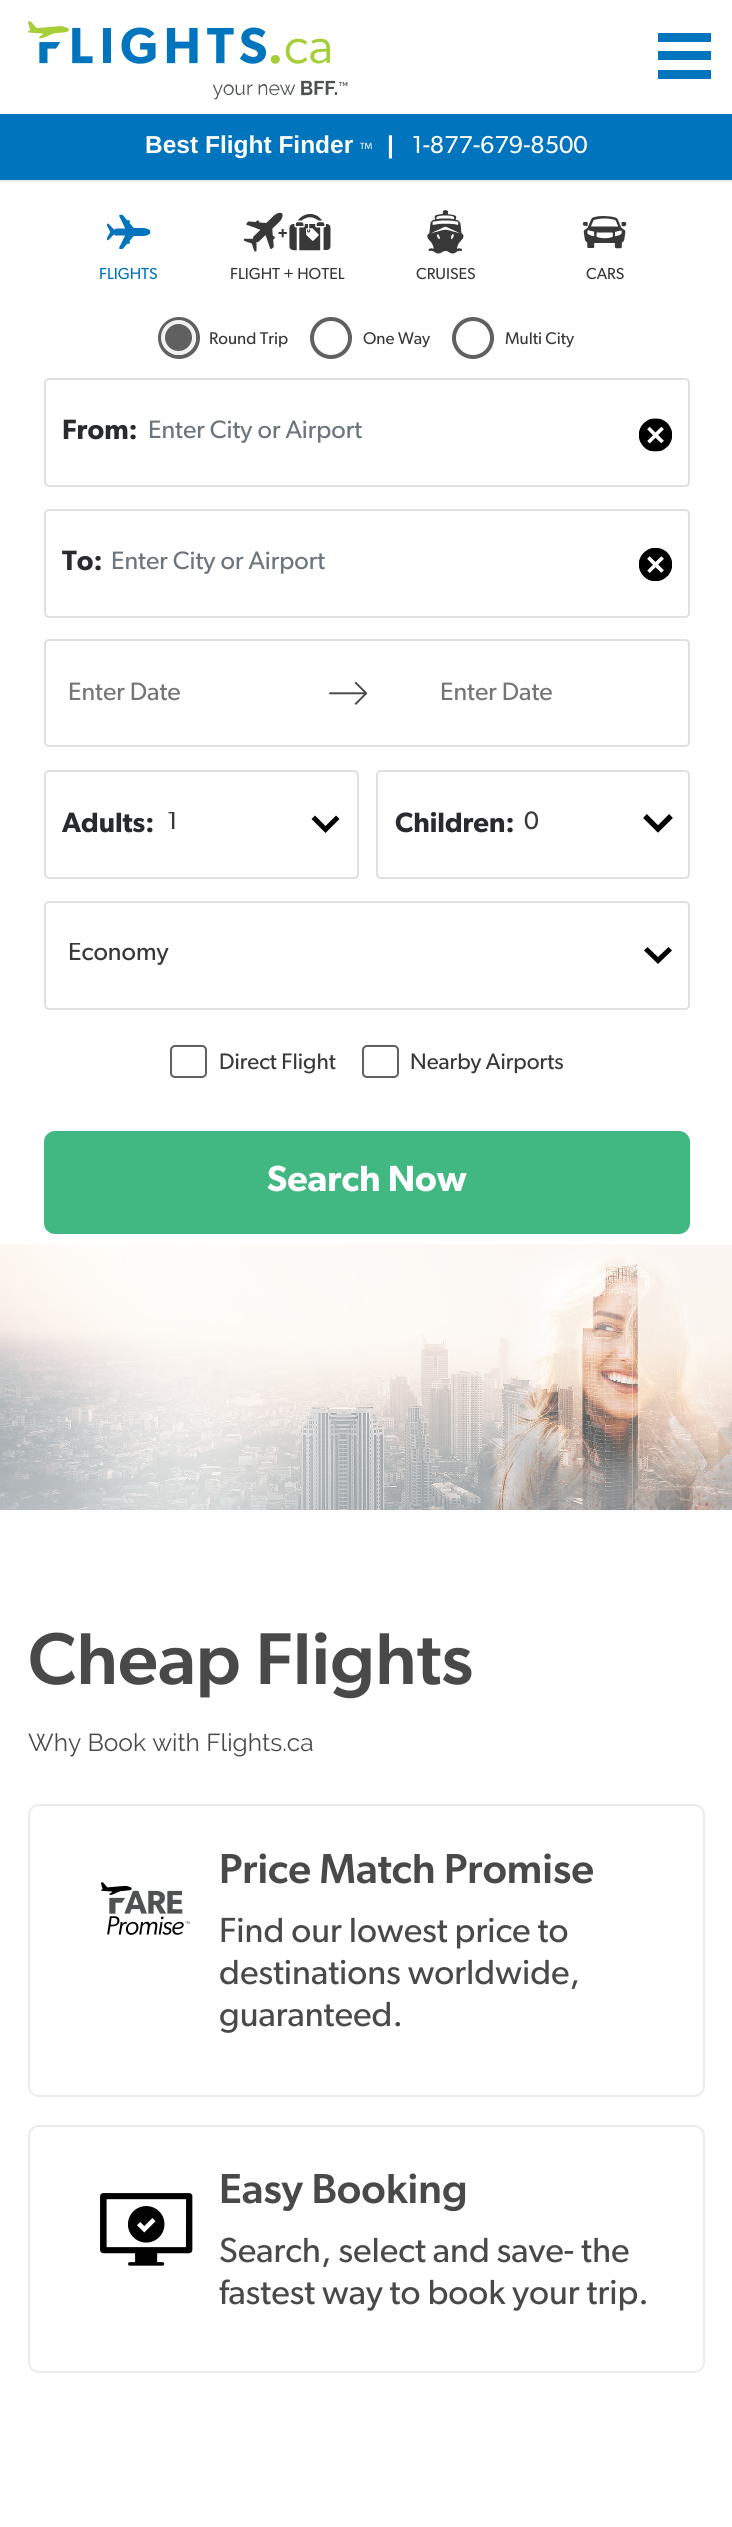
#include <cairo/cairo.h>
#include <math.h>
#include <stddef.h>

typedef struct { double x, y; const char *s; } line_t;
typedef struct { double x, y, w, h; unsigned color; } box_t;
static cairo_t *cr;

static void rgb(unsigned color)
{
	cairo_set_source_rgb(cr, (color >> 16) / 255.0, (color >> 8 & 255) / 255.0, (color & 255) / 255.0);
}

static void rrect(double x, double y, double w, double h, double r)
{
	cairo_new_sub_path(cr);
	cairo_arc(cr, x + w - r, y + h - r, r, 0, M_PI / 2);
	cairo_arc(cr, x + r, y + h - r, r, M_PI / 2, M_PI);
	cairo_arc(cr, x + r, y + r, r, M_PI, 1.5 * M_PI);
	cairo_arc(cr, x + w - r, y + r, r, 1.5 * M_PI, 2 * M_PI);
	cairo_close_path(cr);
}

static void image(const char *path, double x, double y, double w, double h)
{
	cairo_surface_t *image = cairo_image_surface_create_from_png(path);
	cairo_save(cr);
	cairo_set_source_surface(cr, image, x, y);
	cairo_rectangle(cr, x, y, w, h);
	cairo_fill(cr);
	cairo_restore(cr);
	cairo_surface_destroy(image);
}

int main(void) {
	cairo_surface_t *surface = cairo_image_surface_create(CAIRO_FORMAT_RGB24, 732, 2527);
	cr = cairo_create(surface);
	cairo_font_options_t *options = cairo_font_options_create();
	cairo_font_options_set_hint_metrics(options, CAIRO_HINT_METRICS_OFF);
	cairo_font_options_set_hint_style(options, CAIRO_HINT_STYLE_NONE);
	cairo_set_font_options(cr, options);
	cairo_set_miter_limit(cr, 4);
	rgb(0xffffff);
	cairo_paint(cr);
	rgb(0xebebeb);
	cairo_rectangle(cr, 0, 180, 732, 2);
	cairo_fill(cr);
	image("img/1.png", 28, 21, 320, 79);
	{
		static const box_t items[] = {
			{658, 33, 53, 9, 0x0074bc},
			{658, 51, 53, 9, 0x0074bc},
			{658, 70, 53, 9, 0x0074bc},
			{0, 114, 732, 66, 0x0074bc},
		};
		for (size_t i = 0; i < sizeof items / sizeof *items; i++) {
			rgb(items[i].color);
			cairo_rectangle(cr, items[i].x, items[i].y, items[i].w, items[i].h);
			cairo_fill(cr);
		}
	}
	image("img/2.png", 107, 214, 44, 35);
	image("img/3.png", 243, 212, 88, 40);
	image("img/4.png", 427, 210, 37, 44);
	image("img/5.png", 583, 216, 44, 33);
	cairo_arc(cr, 179, 338, 19, 0, 2 * M_PI);
	rgb(0x606060);
	cairo_set_line_width(cr, 4);
	cairo_stroke(cr);
	cairo_arc(cr, 178.5, 337.5, 15.5, 0, 2 * M_PI);
	cairo_fill_preserve(cr);
	rgb(0xf0f1f1);
	cairo_stroke(cr);
	cairo_arc(cr, 331, 338, 19, 0, 2 * M_PI);
	rgb(0x606060);
	cairo_stroke(cr);
	cairo_arc(cr, 473, 338, 19, 0, 2 * M_PI);
	cairo_stroke(cr);
	rrect(45, 379, 644, 107, 4);
	rgb(0xe0e0e0);
	cairo_set_line_width(cr, 2);
	cairo_stroke(cr);
	image("img/6.png", 639, 418, 33, 34);
	rrect(45, 510, 644, 107, 4);
	cairo_stroke(cr);
	image("img/7.png", 639, 548, 33, 34);
	rrect(45, 640, 644, 106, 4);
	cairo_stroke(cr);
	image("img/8.png", 329, 681, 39, 24);
	rrect(45, 771, 313, 107, 4);
	cairo_stroke(cr);
	rgb(0x010101);
	cairo_new_path(cr);
	cairo_move_to(cr, 325.5, 826);
	cairo_line_to(cr, 315, 815.5);
	cairo_line_to(cr, 311.5, 819);
	cairo_line_to(cr, 325.5, 833);
	cairo_line_to(cr, 339.5, 819);
	cairo_line_to(cr, 336, 815.5);
	cairo_close_path(cr);
	cairo_fill(cr);
	rrect(377, 771, 312, 107, 4);
	rgb(0xe0e0e0);
	cairo_stroke(cr);
	image("img/9.png", 643, 814, 30, 19);
	rrect(45, 902, 644, 107, 4);
	cairo_stroke(cr);
	rgb(0x010101);
	cairo_new_path(cr);
	cairo_move_to(cr, 658, 957);
	cairo_line_to(cr, 647.5, 947);
	cairo_line_to(cr, 644, 950.5);
	cairo_line_to(cr, 658, 964);
	cairo_line_to(cr, 672, 950.5);
	cairo_line_to(cr, 668.5, 947);
	cairo_close_path(cr);
	cairo_fill(cr);
	rrect(171, 1046, 35, 31, 4);
	rgb(0x606060);
	cairo_stroke(cr);
	rrect(363, 1046, 35, 31, 4);
	cairo_stroke(cr);
	rgb(0x41b881);
	rrect(44, 1131, 646, 103, 11);
	cairo_fill(cr);
	image("img/10.png", 0, 1244, 732, 267);
	rrect(29, 1805, 675, 291, 10);
	rgb(0xebebeb);
	cairo_stroke(cr);
	image("img/11.png", 100, 1882, 90, 53);
	rrect(29, 2126, 675, 246, 10);
	cairo_stroke(cr);
	image("img/12.png", 100, 2193, 93, 73);
	cairo_select_font_face(cr, "Liberation Sans", CAIRO_FONT_SLANT_NORMAL, CAIRO_FONT_WEIGHT_BOLD);
	cairo_set_font_size(cr, 24.5);
	rgb(0xffffff);
	cairo_move_to(cr, 145, 153);
	cairo_show_text(cr, "Best Flight Finder");
	cairo_select_font_face(cr, "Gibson", CAIRO_FONT_SLANT_NORMAL, CAIRO_FONT_WEIGHT_NORMAL);
	cairo_set_font_size(cr, 9);
	cairo_move_to(cr, 360, 149);
	cairo_show_text(cr, "TM");
	cairo_select_font_face(cr, "Liberation Sans", CAIRO_FONT_SLANT_NORMAL, CAIRO_FONT_WEIGHT_BOLD);
	cairo_set_font_size(cr, 24.5);
	cairo_move_to(cr, 387, 153);
	cairo_show_text(cr, "|");
	cairo_select_font_face(cr, "Gibson", CAIRO_FONT_SLANT_NORMAL, CAIRO_FONT_WEIGHT_NORMAL);
	cairo_move_to(cr, 412, 153);
	cairo_show_text(cr, "1-877-679-8500");
	cairo_set_font_size(cr, 16);
	rgb(0x0074bc);
	cairo_move_to(cr, 99, 279);
	cairo_show_text(cr, "FLIGHTS");
	rgb(0x383838);
	{
		static const line_t items[] = {
			{230, 279, "FLIGHT + HOTEL"},
			{416, 279, "CRUISES"},
			{586, 279, "CARS"},
		};
		for (size_t i = 0; i < sizeof items / sizeof *items; i++) {
			cairo_move_to(cr, items[i].x, items[i].y);
			cairo_show_text(cr, items[i].s);
		}
	}
	cairo_set_font_size(cr, 17);
	{
		static const line_t items[] = {
			{209, 344, "Round Trip"},
			{363, 344, "One Way"},
			{505, 344, "Multi City"},
		};
		for (size_t i = 0; i < sizeof items / sizeof *items; i++) {
			cairo_move_to(cr, items[i].x, items[i].y);
			cairo_show_text(cr, items[i].s);
		}
	}
	cairo_select_font_face(cr, "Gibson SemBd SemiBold", CAIRO_FONT_SLANT_NORMAL, CAIRO_FONT_WEIGHT_NORMAL);
	cairo_set_font_size(cr, 28);
	rgb(0x292a2d);
	cairo_move_to(cr, 62, 439);
	cairo_show_text(cr, "From:");
	cairo_select_font_face(cr, "Gibson", CAIRO_FONT_SLANT_NORMAL, CAIRO_FONT_WEIGHT_NORMAL);
	cairo_set_font_size(cr, 25.25);
	rgb(0x6c757d);
	cairo_move_to(cr, 148, 438);
	cairo_show_text(cr, "Enter City or Airport");
	cairo_select_font_face(cr, "Gibson SemBd SemiBold", CAIRO_FONT_SLANT_NORMAL, CAIRO_FONT_WEIGHT_NORMAL);
	cairo_set_font_size(cr, 28);
	rgb(0x292a2d);
	cairo_move_to(cr, 62, 570);
	cairo_show_text(cr, "To:");
	cairo_select_font_face(cr, "Gibson", CAIRO_FONT_SLANT_NORMAL, CAIRO_FONT_WEIGHT_NORMAL);
	cairo_set_font_size(cr, 25.25);
	rgb(0x6c757d);
	cairo_move_to(cr, 111, 569);
	cairo_show_text(cr, "Enter City or Airport");
	rgb(0x757575);
	cairo_move_to(cr, 68, 700);
	cairo_show_text(cr, "Enter Date");
	cairo_move_to(cr, 440, 700);
	cairo_show_text(cr, "Enter Date");
	cairo_select_font_face(cr, "Gibson SemBd SemiBold", CAIRO_FONT_SLANT_NORMAL, CAIRO_FONT_WEIGHT_NORMAL);
	cairo_set_font_size(cr, 28);
	rgb(0x292a2d);
	cairo_move_to(cr, 62, 832);
	cairo_show_text(cr, "Adults:");
	cairo_save(cr);
	cairo_rectangle(cr, 168, 812, 137, 25);
	cairo_clip(cr);
	cairo_select_font_face(cr, "Gibson", CAIRO_FONT_SLANT_NORMAL, CAIRO_FONT_WEIGHT_NORMAL);
	cairo_set_font_size(cr, 25.25);
	rgb(0x383838);
	cairo_move_to(cr, 167, 829);
	cairo_show_text(cr, "1");
	cairo_restore(cr);
	cairo_move_to(cr, 395, 832);
	cairo_show_text(cr, "Children:");
	cairo_select_font_face(cr, "Gibson", CAIRO_FONT_SLANT_NORMAL, CAIRO_FONT_WEIGHT_NORMAL);
	cairo_set_font_size(cr, 25.25);
	rgb(0x383838);
	cairo_move_to(cr, 524, 829);
	cairo_show_text(cr, "0");
	cairo_save(cr);
	cairo_rectangle(cr, 68, 943, 567, 25);
	cairo_clip(cr);
	cairo_move_to(cr, 68, 960);
	cairo_show_text(cr, "Economy");
	cairo_restore(cr);
	cairo_set_font_size(cr, 22.5);
	cairo_move_to(cr, 219, 1069);
	cairo_show_text(cr, "Direct Flight");
	cairo_move_to(cr, 410, 1069);
	cairo_show_text(cr, "Nearby Airports");
	cairo_select_font_face(cr, "Gibson SemBd SemiBold", CAIRO_FONT_SLANT_NORMAL, CAIRO_FONT_WEIGHT_NORMAL);
	cairo_set_font_size(cr, 36.5);
	rgb(0xffffff);
	cairo_move_to(cr, 267, 1191);
	cairo_show_text(cr, "Search Now");
	cairo_select_font_face(cr, "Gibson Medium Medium", CAIRO_FONT_SLANT_NORMAL, CAIRO_FONT_WEIGHT_NORMAL);
	cairo_set_font_size(cr, 73.5);
	rgb(0x494949);
	cairo_move_to(cr, 28, 1684);
	cairo_show_text(cr, "Cheap Flights");
	cairo_select_font_face(cr, "Raleway", CAIRO_FONT_SLANT_NORMAL, CAIRO_FONT_WEIGHT_NORMAL);
	cairo_set_font_size(cr, 24.5);
	cairo_move_to(cr, 28, 1751);
	cairo_show_text(cr, "Why Book with Flights.ca");
	cairo_select_font_face(cr, "Gibson Medium Medium", CAIRO_FONT_SLANT_NORMAL, CAIRO_FONT_WEIGHT_NORMAL);
	cairo_set_font_size(cr, 42);
	cairo_move_to(cr, 219, 1883);
	cairo_show_text(cr, "Price Match Promise");
	cairo_select_font_face(cr, "Gibson", CAIRO_FONT_SLANT_NORMAL, CAIRO_FONT_WEIGHT_NORMAL);
	cairo_set_font_size(cr, 35);
	{
		static const line_t items[] = {
			{219, 1942, "Find our lowest price to"},
			{219, 1984, "destinations worldwide,"},
			{219, 2026, "guaranteed."},
		};
		for (size_t i = 0; i < sizeof items / sizeof *items; i++) {
			cairo_move_to(cr, items[i].x, items[i].y);
			cairo_show_text(cr, items[i].s);
		}
	}
	cairo_select_font_face(cr, "Gibson Medium Medium", CAIRO_FONT_SLANT_NORMAL, CAIRO_FONT_WEIGHT_NORMAL);
	cairo_set_font_size(cr, 42);
	cairo_move_to(cr, 219, 2203);
	cairo_show_text(cr, "Easy Booking");
	cairo_select_font_face(cr, "Gibson", CAIRO_FONT_SLANT_NORMAL, CAIRO_FONT_WEIGHT_NORMAL);
	cairo_set_font_size(cr, 35);
	cairo_move_to(cr, 219, 2262);
	cairo_show_text(cr, "Search, select and save- the");
	cairo_move_to(cr, 219, 2304);
	cairo_show_text(cr, "fastest way to book your trip.");
	cairo_surface_write_to_png(surface, "page.png");
	cairo_font_options_destroy(options);
	cairo_destroy(cr);
	cairo_surface_destroy(surface);
	return 0;
}
